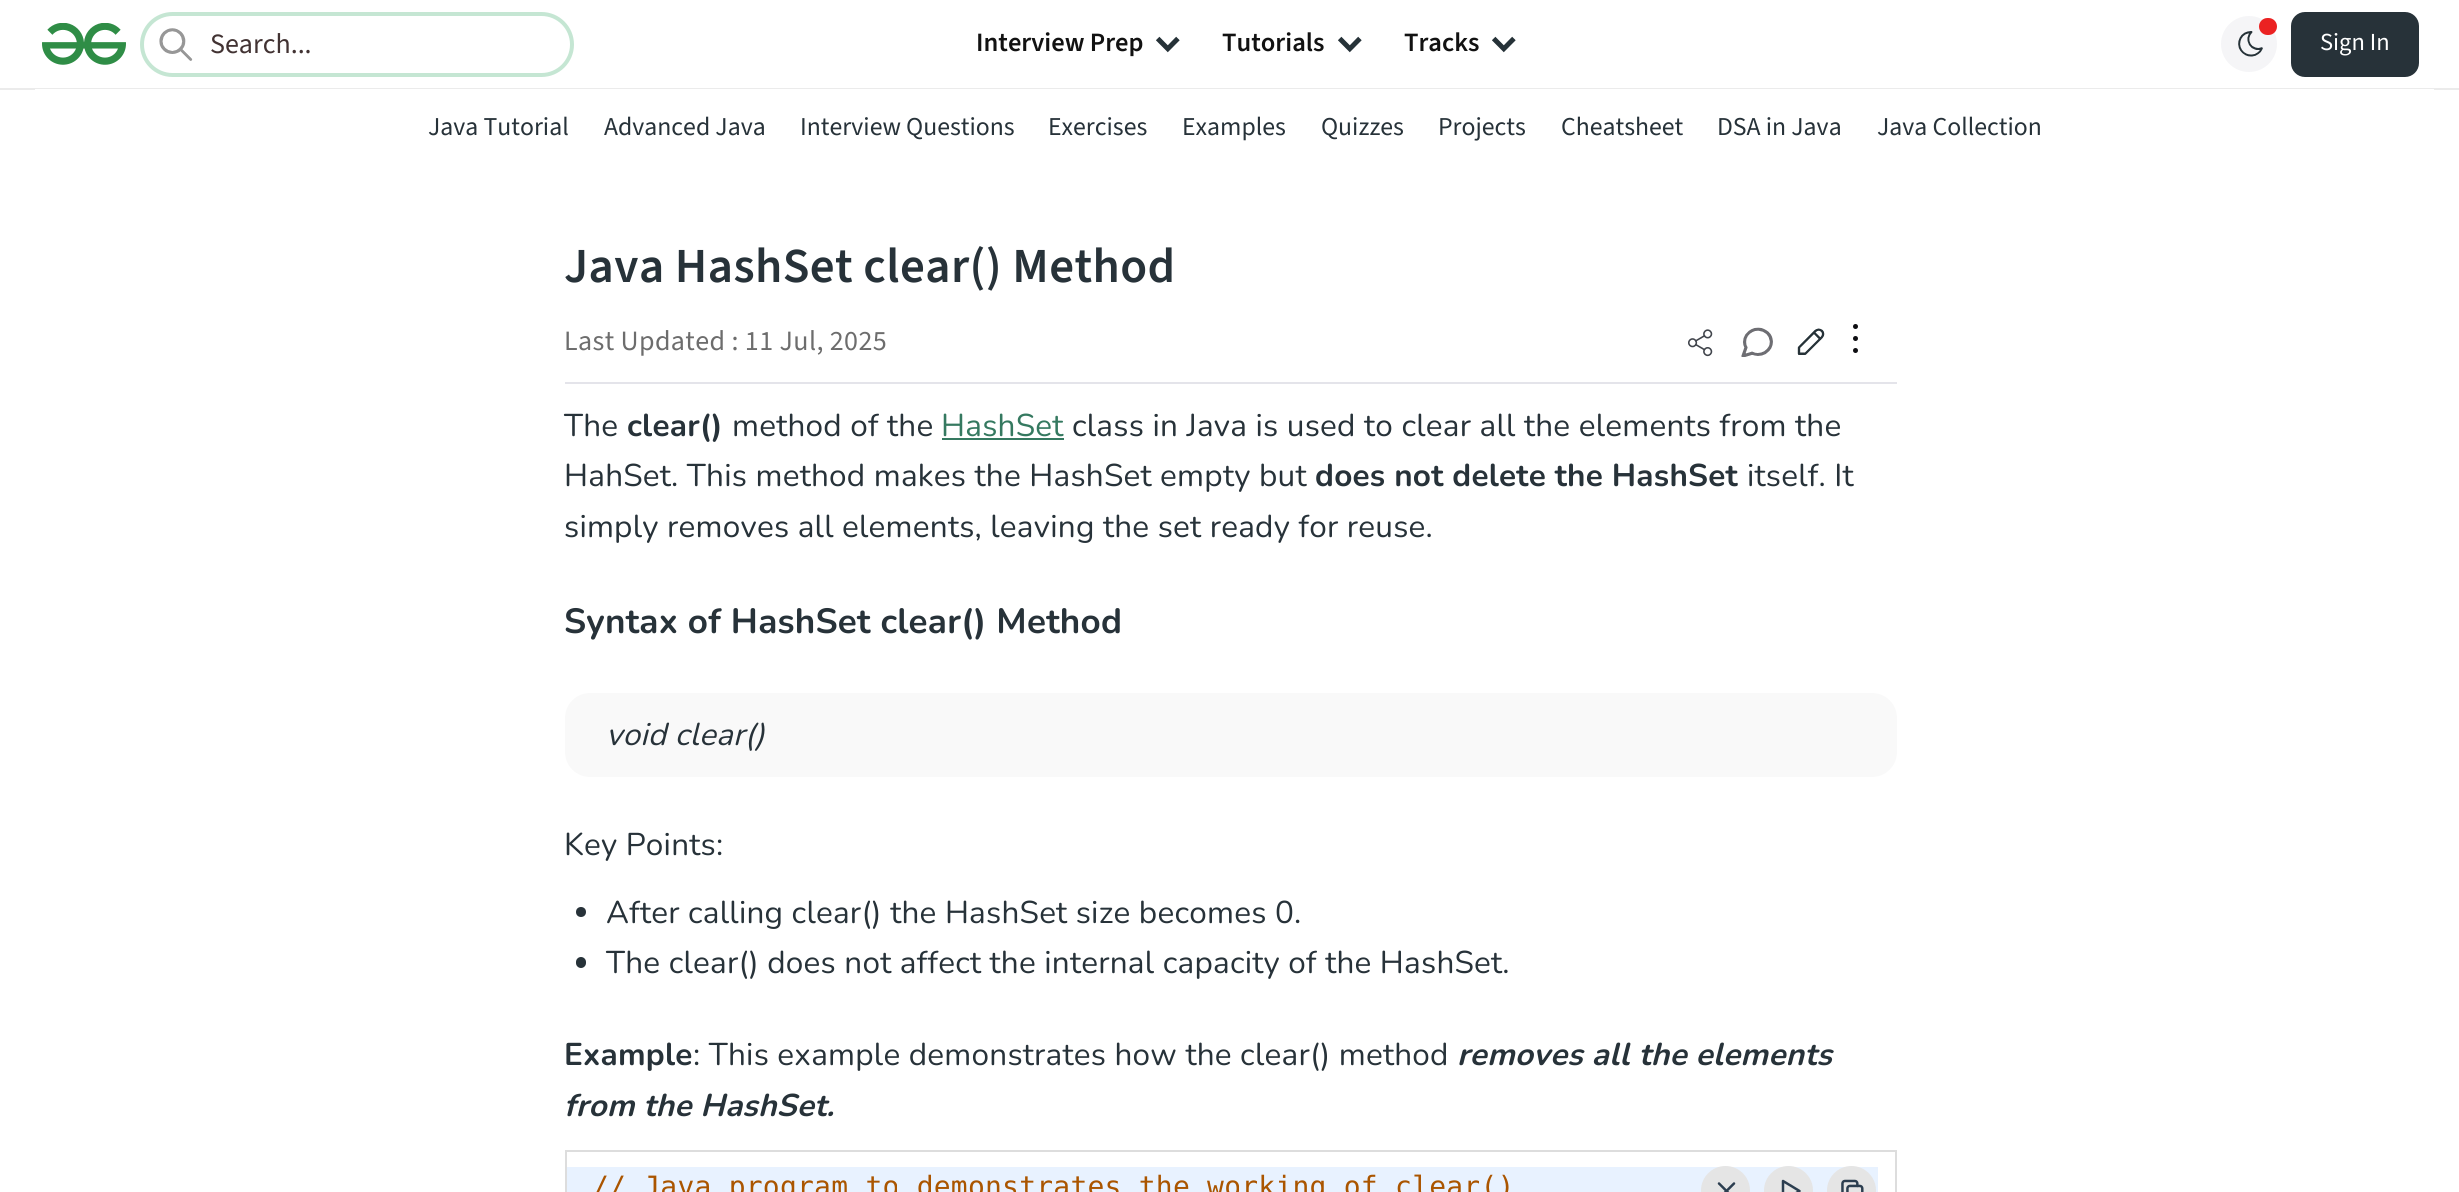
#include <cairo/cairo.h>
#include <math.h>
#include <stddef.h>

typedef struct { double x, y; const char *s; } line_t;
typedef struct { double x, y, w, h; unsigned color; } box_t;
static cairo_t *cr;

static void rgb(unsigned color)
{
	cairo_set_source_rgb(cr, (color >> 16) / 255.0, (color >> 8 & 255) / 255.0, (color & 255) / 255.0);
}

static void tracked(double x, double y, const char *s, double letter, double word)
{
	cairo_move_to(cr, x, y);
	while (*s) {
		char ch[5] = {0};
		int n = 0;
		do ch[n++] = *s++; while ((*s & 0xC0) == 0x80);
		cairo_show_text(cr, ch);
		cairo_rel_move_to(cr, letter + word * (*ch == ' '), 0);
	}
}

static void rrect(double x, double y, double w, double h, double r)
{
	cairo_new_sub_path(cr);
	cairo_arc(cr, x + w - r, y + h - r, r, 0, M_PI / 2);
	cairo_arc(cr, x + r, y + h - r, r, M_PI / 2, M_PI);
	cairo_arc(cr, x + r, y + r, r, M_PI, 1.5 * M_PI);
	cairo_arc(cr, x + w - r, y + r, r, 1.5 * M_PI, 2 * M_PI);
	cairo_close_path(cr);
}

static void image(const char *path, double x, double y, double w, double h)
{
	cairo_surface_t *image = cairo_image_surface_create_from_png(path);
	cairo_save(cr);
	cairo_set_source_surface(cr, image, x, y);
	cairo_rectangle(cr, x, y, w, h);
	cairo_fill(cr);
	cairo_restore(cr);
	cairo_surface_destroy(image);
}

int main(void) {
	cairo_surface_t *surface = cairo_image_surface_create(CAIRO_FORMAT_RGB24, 2459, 1192);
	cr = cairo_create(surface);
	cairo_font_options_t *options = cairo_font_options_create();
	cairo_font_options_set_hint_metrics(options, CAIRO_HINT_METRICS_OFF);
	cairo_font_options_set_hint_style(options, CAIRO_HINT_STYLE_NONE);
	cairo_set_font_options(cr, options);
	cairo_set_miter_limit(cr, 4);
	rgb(0xffffff);
	cairo_paint(cr);
	image("img/1.png", 42, 23, 84, 42);
	rrect(142, 14, 430, 61, 30.5);
	rgb(0xc5e6d3);
	cairo_set_line_width(cr, 4);
	cairo_stroke(cr);
	image("img/2.png", 159, 28, 34, 33);
	image("img/3.png", 1156, 36, 24, 17);
	image("img/3.png", 1338, 36, 24, 17);
	image("img/3.png", 1492, 36, 24, 17);
	rgb(0xf5f5f7);
	cairo_arc(cr, 2249, 44, 28, 0, 2 * M_PI);
	cairo_fill(cr);
	rgb(0xeb2222);
	rrect(2259, 18, 18, 17, 8.5);
	cairo_fill(cr);
	image("img/4.png", 2238, 31, 25, 26);
	rgb(0x273239);
	rrect(2291, 12, 128, 65, 14);
	cairo_fill(cr);
	{
		static const box_t items[] = {
			{0, 88, 2459, 2, 0xebebeb},
			{35, 89, 2399, 1, 0xffffff},
			{565, 382, 1332, 2, 0xe4e4ea},
		};
		for (size_t i = 0; i < sizeof items / sizeof *items; i++) {
			rgb(items[i].color);
			cairo_rectangle(cr, items[i].x, items[i].y, items[i].w, items[i].h);
			cairo_fill(cr);
		}
	}
	image("img/5.png", 1688, 329, 25, 28);
	image("img/6.png", 1741, 327, 32, 30);
	image("img/7.png", 1797, 328, 28, 27);
	rgb(0x0e0e12);
	cairo_arc(cr, 1855.5, 326.5, 2.5, 0, 2 * M_PI);
	cairo_fill(cr);
	cairo_arc(cr, 1855.5, 338.5, 2.5, 0, 2 * M_PI);
	cairo_fill(cr);
	cairo_arc(cr, 1855.5, 350.5, 2.5, 0, 2 * M_PI);
	cairo_fill(cr);
	rgb(0x357960);
	cairo_rectangle(cr, 942, 438, 122, 2);
	cairo_fill(cr);
	rgb(0xf9f9f9);
	rrect(565, 693, 1332, 84, 25);
	cairo_fill(cr);
	rgb(0x273239);
	cairo_arc(cr, 581, 912, 5, 0, 2 * M_PI);
	cairo_fill(cr);
	rrect(576, 957, 10, 11, 5);
	cairo_fill(cr);
	cairo_rectangle(cr, 566, 1151, 1330, 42);
	rgb(0xdddddd);
	cairo_set_line_width(cr, 2);
	cairo_stroke(cr);
	rgb(0xe8f2ff);
	cairo_rectangle(cr, 567, 1167, 1311, 25);
	cairo_fill(cr);
	rgb(0xe5e5e5);
	cairo_arc(cr, 1725.5, 1190.5, 24.5, 0, 2 * M_PI);
	cairo_fill(cr);
	cairo_new_path(cr);
	cairo_move_to(cr, 1734, 1183.5);
	cairo_line_to(cr, 1719, 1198.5);
	cairo_move_to(cr, 1719, 1183.5);
	cairo_line_to(cr, 1734, 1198.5);
	rgb(0x2c3e50);
	cairo_set_line_width(cr, 2.5);
	cairo_set_line_cap(cr, CAIRO_LINE_CAP_ROUND);
	cairo_set_line_join(cr, CAIRO_LINE_JOIN_ROUND);
	cairo_stroke(cr);
	rgb(0xe5e5e5);
	cairo_arc(cr, 1788.5, 1190.5, 24.5, 0, 2 * M_PI);
	cairo_fill(cr);
	cairo_new_path(cr);
	cairo_move_to(cr, 1783, 1181);
	cairo_line_to(cr, 1783, 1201);
	cairo_line_to(cr, 1799.5, 1191);
	cairo_close_path(cr);
	rgb(0x2c3e50);
	cairo_stroke(cr);
	rgb(0xe5e5e5);
	cairo_arc(cr, 1851.5, 1190.5, 24.5, 0, 2 * M_PI);
	cairo_fill(cr);
	image("img/8.png", 1841, 1179, 23, 13);
	cairo_select_font_face(cr, "Source Sans 3", CAIRO_FONT_SLANT_NORMAL, CAIRO_FONT_WEIGHT_NORMAL);
	cairo_set_font_size(cr, 28);
	rgb(0x423333);
	cairo_move_to(cr, 210, 53);
	cairo_show_text(cr, "Search...");
	cairo_select_font_face(cr, "Source Sans 3 SemiBold", CAIRO_FONT_SLANT_NORMAL, CAIRO_FONT_WEIGHT_NORMAL);
	cairo_set_font_size(cr, 26.5);
	rgb(0x121212);
	{
		static const line_t items[] = {
			{976, 51, "Interview Prep"},
			{1222, 51, "Tutorials"},
			{1404, 51, "Tracks"},
		};
		for (size_t i = 0; i < sizeof items / sizeof *items; i++) {
			cairo_move_to(cr, items[i].x, items[i].y);
			cairo_show_text(cr, items[i].s);
		}
	}
	cairo_select_font_face(cr, "Source Sans 3", CAIRO_FONT_SLANT_NORMAL, CAIRO_FONT_WEIGHT_NORMAL);
	cairo_set_font_size(cr, 24.5);
	rgb(0xffffff);
	cairo_move_to(cr, 2320, 50);
	cairo_show_text(cr, "Sign In");
	cairo_set_font_size(cr, 25.75);
	rgb(0x273239);
	{
		static const line_t items[] = {
			{428, 135, "Java Tutorial"},
			{604, 135, "Advanced Java"},
			{800, 135, "Interview Questions"},
			{1048, 135, "Exercises"},
			{1182, 135, "Examples"},
			{1321, 135, "Quizzes"},
			{1438, 135, "Projects"},
			{1561, 135, "Cheatsheet"},
			{1717, 135, "DSA in Java"},
			{1877, 135, "Java Collection"},
		};
		for (size_t i = 0; i < sizeof items / sizeof *items; i++) {
			cairo_move_to(cr, items[i].x, items[i].y);
			cairo_show_text(cr, items[i].s);
		}
	}
	cairo_select_font_face(cr, "Source Sans 3 SemiBold", CAIRO_FONT_SLANT_NORMAL, CAIRO_FONT_WEIGHT_NORMAL);
	cairo_set_font_size(cr, 49);
	tracked(564, 282, "Java HashSet clear() Method", 0.4, 0);
	cairo_select_font_face(cr, "Source Sans 3", CAIRO_FONT_SLANT_NORMAL, CAIRO_FONT_WEIGHT_NORMAL);
	cairo_set_font_size(cr, 28);
	rgb(0x6d6d6d);
	tracked(564, 350, "Last Updated : 11 Jul, 2025", 0.4, 0);
	cairo_select_font_face(cr, "Nunito", CAIRO_FONT_SLANT_NORMAL, CAIRO_FONT_WEIGHT_NORMAL);
	cairo_set_font_size(cr, 31.5);
	rgb(0x273239);
	tracked(564, 436, "The", 0.23, 0);
	cairo_select_font_face(cr, "Nunito", CAIRO_FONT_SLANT_NORMAL, CAIRO_FONT_WEIGHT_BOLD);
	tracked(627, 436, "clear()", 0.23, 0);
	cairo_select_font_face(cr, "Nunito", CAIRO_FONT_SLANT_NORMAL, CAIRO_FONT_WEIGHT_NORMAL);
	tracked(732, 436, "method of the", 0.23, 0);
	rgb(0x357960);
	tracked(941, 436, "HashSet", 0.23, 0);
	rgb(0x273239);
	tracked(1072, 436, "class in Java is used to clear all the elements from the", 0.23, 0);
	tracked(564, 486, "HahSet. This method makes the HashSet empty but", 0.23, 0);
	cairo_select_font_face(cr, "Nunito", CAIRO_FONT_SLANT_NORMAL, CAIRO_FONT_WEIGHT_BOLD);
	tracked(1315, 486, "does not delete the HashSet", 0.23, 0);
	cairo_select_font_face(cr, "Nunito", CAIRO_FONT_SLANT_NORMAL, CAIRO_FONT_WEIGHT_NORMAL);
	tracked(1747, 486, "itself. It", 0.23, 0);
	tracked(564, 537, "simply removes all elements, leaving the set ready for reuse.", 0.23, 0);
	cairo_select_font_face(cr, "Nunito", CAIRO_FONT_SLANT_NORMAL, CAIRO_FONT_WEIGHT_BOLD);
	cairo_set_font_size(cr, 35);
	tracked(564, 633, "Syntax of HashSet clear() Method", 0.23, 0);
	cairo_select_font_face(cr, "Nunito", CAIRO_FONT_SLANT_ITALIC, CAIRO_FONT_WEIGHT_NORMAL);
	cairo_set_font_size(cr, 31.5);
	tracked(606, 745, "void clear()", 0.23, 0);
	cairo_select_font_face(cr, "Nunito", CAIRO_FONT_SLANT_NORMAL, CAIRO_FONT_WEIGHT_NORMAL);
	{
		static const line_t items[] = {
			{564, 855, "Key Points:"},
			{606, 923, "After calling clear() the HashSet size becomes 0."},
			{606, 973, "The clear() does not affect the internal capacity of the HashSet."},
		};
		for (size_t i = 0; i < sizeof items / sizeof *items; i++) {
			tracked(items[i].x, items[i].y, items[i].s, 0.23, 0);
		}
	}
	cairo_select_font_face(cr, "Nunito", CAIRO_FONT_SLANT_NORMAL, CAIRO_FONT_WEIGHT_BOLD);
	tracked(564, 1065, "Example", 0.23, 0);
	cairo_select_font_face(cr, "Nunito", CAIRO_FONT_SLANT_NORMAL, CAIRO_FONT_WEIGHT_NORMAL);
	tracked(693, 1065, ": This example demonstrates how the clear() method", 0.23, 0);
	cairo_select_font_face(cr, "Nunito", CAIRO_FONT_SLANT_ITALIC, CAIRO_FONT_WEIGHT_BOLD);
	tracked(1457, 1065, "removes all the elements", 0.23, 0);
	tracked(564, 1116, "from the HashSet.", 0.23, 0);
	cairo_select_font_face(cr, "DejaVu Sans Mono", CAIRO_FONT_SLANT_NORMAL, CAIRO_FONT_WEIGHT_NORMAL);
	cairo_set_font_size(cr, 28);
	rgb(0xaa5500);
	tracked(592, 1196, "// Java program to demonstrates the working of clear()", 0.23, 0);
	cairo_surface_write_to_png(surface, "page.png");
	cairo_font_options_destroy(options);
	cairo_destroy(cr);
	cairo_surface_destroy(surface);
	return 0;
}
